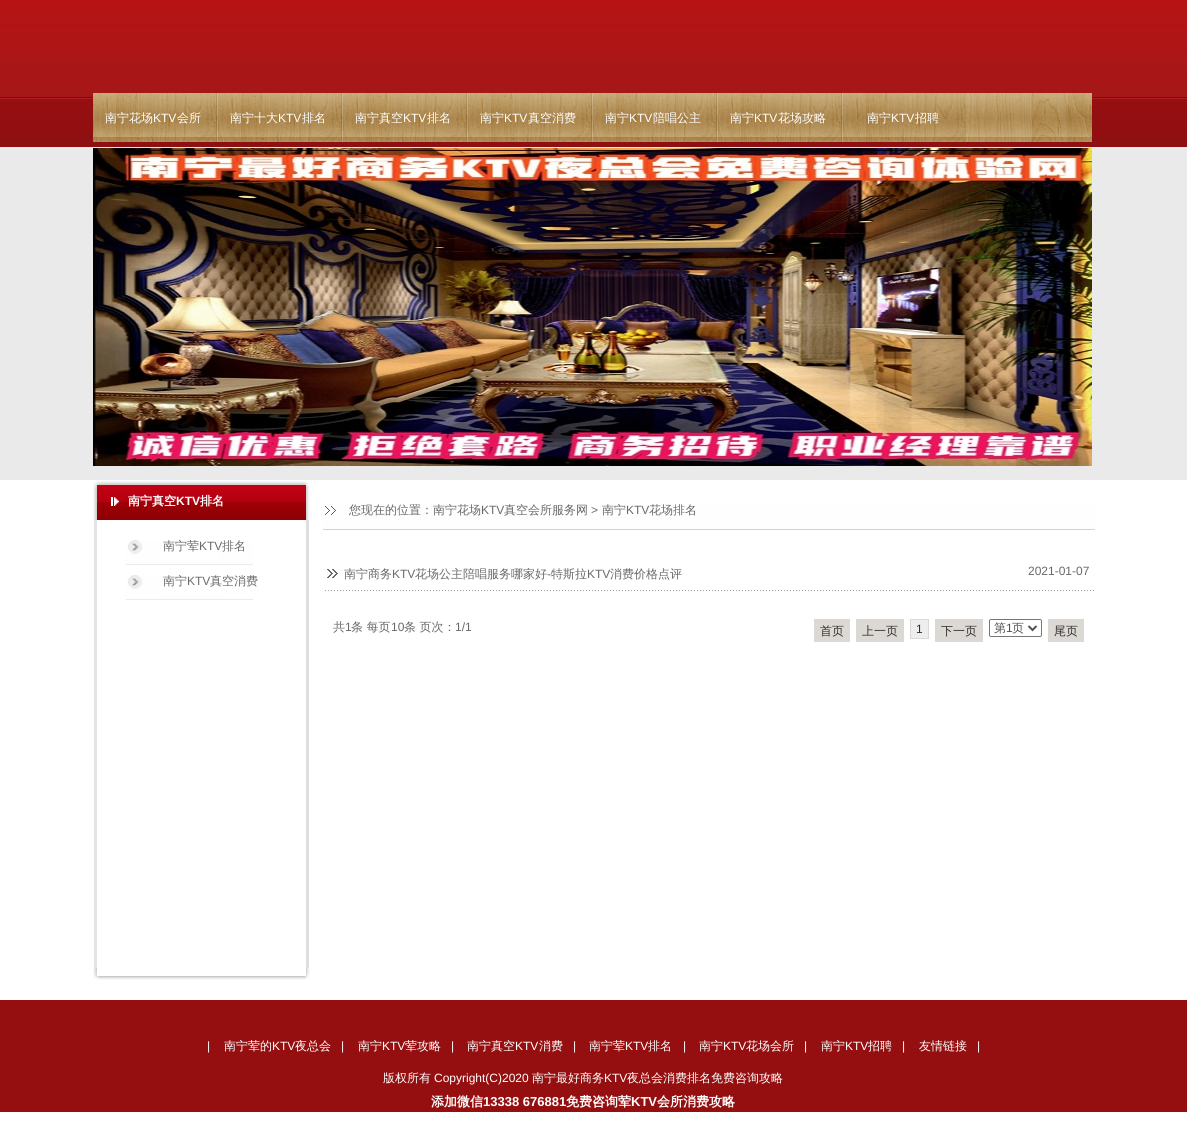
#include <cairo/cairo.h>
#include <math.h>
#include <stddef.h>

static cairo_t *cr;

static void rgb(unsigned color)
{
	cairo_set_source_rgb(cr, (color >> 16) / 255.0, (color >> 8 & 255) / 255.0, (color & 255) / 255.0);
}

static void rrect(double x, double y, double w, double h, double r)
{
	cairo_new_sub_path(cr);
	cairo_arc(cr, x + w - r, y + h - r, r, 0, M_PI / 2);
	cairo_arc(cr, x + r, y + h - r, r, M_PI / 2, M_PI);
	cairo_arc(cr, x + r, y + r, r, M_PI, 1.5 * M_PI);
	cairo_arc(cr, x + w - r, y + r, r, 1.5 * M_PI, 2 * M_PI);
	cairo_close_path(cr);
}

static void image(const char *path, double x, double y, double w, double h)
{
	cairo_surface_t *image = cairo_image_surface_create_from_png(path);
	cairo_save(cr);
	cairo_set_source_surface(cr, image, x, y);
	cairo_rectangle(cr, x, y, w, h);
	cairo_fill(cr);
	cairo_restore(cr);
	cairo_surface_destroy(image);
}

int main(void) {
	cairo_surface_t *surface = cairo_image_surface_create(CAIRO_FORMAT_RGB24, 1187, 1137);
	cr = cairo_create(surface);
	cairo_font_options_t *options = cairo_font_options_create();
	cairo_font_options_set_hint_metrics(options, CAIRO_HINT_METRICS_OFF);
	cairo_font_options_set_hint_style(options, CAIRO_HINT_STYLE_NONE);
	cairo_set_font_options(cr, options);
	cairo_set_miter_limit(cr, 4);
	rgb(0xffffff);
	cairo_paint(cr);
	image("img/1.png", 0, 0, 1187, 480);
	image("img/2.png", 93, 93, 999, 49);
	image("img/3.png", 216, 93, 125, 49);
	image("img/3.png", 341, 93, 125, 49);
	image("img/3.png", 466, 93, 125, 49);
	image("img/3.png", 591, 93, 125, 49);
	image("img/3.png", 716, 93, 125, 49);
	image("img/3.png", 841, 93, 125, 49);
	image("img/4.png", 93, 148, 999, 318);
	rgb(0xe3e3e3);
	cairo_rectangle(cr, 94, 520, 3, 448);
	cairo_fill(cr);
	rgb(0xdedede);
	cairo_rectangle(cr, 306, 520, 3, 448);
	cairo_fill(cr);
	image("img/5.png", 93, 481, 212, 39);
	image("img/6.png", 305, 481, 5, 39);
	image("img/7.png", 126, 540, 127, 25);
	image("img/7.png", 126, 575, 127, 25);
	image("img/8.png", 93, 968, 212, 12);
	image("img/9.png", 305, 968, 5, 12);
	image("img/10.png", 323, 506, 772, 24);
	image("img/11.png", 325, 569, 769, 22);
	rgb(0xdcd9d4);
	cairo_rectangle(cr, 814, 619, 36, 23);
	cairo_fill(cr);
	cairo_rectangle(cr, 856, 619, 48, 23);
	cairo_fill(cr);
	rgb(0xeeeeee);
	cairo_rectangle(cr, 910.5, 619.5, 18, 19);
	cairo_fill_preserve(cr);
	rgb(0xdcd9d4);
	cairo_set_line_width(cr, 1);
	cairo_stroke(cr);
	cairo_rectangle(cr, 935, 619, 48, 23);
	cairo_fill(cr);
	rrect(989.5, 619.5, 52, 17, 1.5);
	rgb(0x767676);
	cairo_stroke(cr);
	cairo_new_path(cr);
	cairo_move_to(cr, 1028.5, 626);
	cairo_line_to(cr, 1032.5, 630);
	cairo_line_to(cr, 1036.5, 626);
	rgb(0x505050);
	cairo_set_line_width(cr, 2);
	cairo_stroke(cr);
	rgb(0xdcd9d4);
	cairo_rectangle(cr, 1048, 619, 36, 23);
	cairo_fill(cr);
	rgb(0x960f10);
	cairo_rectangle(cr, 0, 1000, 1187, 112);
	cairo_fill(cr);
	cairo_select_font_face(cr, "WenQuanYi Zen Hei Medium", CAIRO_FONT_SLANT_NORMAL, CAIRO_FONT_WEIGHT_NORMAL);
	cairo_set_font_size(cr, 12);
	rgb(0xffffff);
	cairo_move_to(cr, 105, 122);
	cairo_show_text(cr, "南宁花场");
	cairo_select_font_face(cr, "Liberation Sans", CAIRO_FONT_SLANT_NORMAL, CAIRO_FONT_WEIGHT_NORMAL);
	cairo_move_to(cr, 153, 122);
	cairo_show_text(cr, "KTV");
	cairo_select_font_face(cr, "WenQuanYi Zen Hei Medium", CAIRO_FONT_SLANT_NORMAL, CAIRO_FONT_WEIGHT_NORMAL);
	cairo_move_to(cr, 177, 122);
	cairo_show_text(cr, "会所");
	cairo_move_to(cr, 230, 122);
	cairo_show_text(cr, "南宁十大");
	cairo_select_font_face(cr, "Liberation Sans", CAIRO_FONT_SLANT_NORMAL, CAIRO_FONT_WEIGHT_NORMAL);
	cairo_move_to(cr, 278, 122);
	cairo_show_text(cr, "KTV");
	cairo_select_font_face(cr, "WenQuanYi Zen Hei Medium", CAIRO_FONT_SLANT_NORMAL, CAIRO_FONT_WEIGHT_NORMAL);
	cairo_move_to(cr, 302, 122);
	cairo_show_text(cr, "排名");
	cairo_move_to(cr, 355, 122);
	cairo_show_text(cr, "南宁真空");
	cairo_select_font_face(cr, "Liberation Sans", CAIRO_FONT_SLANT_NORMAL, CAIRO_FONT_WEIGHT_NORMAL);
	cairo_move_to(cr, 403, 122);
	cairo_show_text(cr, "KTV");
	cairo_select_font_face(cr, "WenQuanYi Zen Hei Medium", CAIRO_FONT_SLANT_NORMAL, CAIRO_FONT_WEIGHT_NORMAL);
	cairo_move_to(cr, 427, 122);
	cairo_show_text(cr, "排名");
	cairo_move_to(cr, 480, 122);
	cairo_show_text(cr, "南宁");
	cairo_select_font_face(cr, "Liberation Sans", CAIRO_FONT_SLANT_NORMAL, CAIRO_FONT_WEIGHT_NORMAL);
	cairo_move_to(cr, 504, 122);
	cairo_show_text(cr, "KTV");
	cairo_select_font_face(cr, "WenQuanYi Zen Hei Medium", CAIRO_FONT_SLANT_NORMAL, CAIRO_FONT_WEIGHT_NORMAL);
	cairo_move_to(cr, 528, 122);
	cairo_show_text(cr, "真空消费");
	cairo_move_to(cr, 605, 122);
	cairo_show_text(cr, "南宁");
	cairo_select_font_face(cr, "Liberation Sans", CAIRO_FONT_SLANT_NORMAL, CAIRO_FONT_WEIGHT_NORMAL);
	cairo_move_to(cr, 629, 122);
	cairo_show_text(cr, "KTV");
	cairo_select_font_face(cr, "WenQuanYi Zen Hei Medium", CAIRO_FONT_SLANT_NORMAL, CAIRO_FONT_WEIGHT_NORMAL);
	cairo_move_to(cr, 653, 122);
	cairo_show_text(cr, "陪唱公主");
	cairo_move_to(cr, 730, 122);
	cairo_show_text(cr, "南宁");
	cairo_select_font_face(cr, "Liberation Sans", CAIRO_FONT_SLANT_NORMAL, CAIRO_FONT_WEIGHT_NORMAL);
	cairo_move_to(cr, 754, 122);
	cairo_show_text(cr, "KTV");
	cairo_select_font_face(cr, "WenQuanYi Zen Hei Medium", CAIRO_FONT_SLANT_NORMAL, CAIRO_FONT_WEIGHT_NORMAL);
	cairo_move_to(cr, 778, 122);
	cairo_show_text(cr, "花场攻略");
	cairo_move_to(cr, 867, 122);
	cairo_show_text(cr, "南宁");
	cairo_select_font_face(cr, "Liberation Sans", CAIRO_FONT_SLANT_NORMAL, CAIRO_FONT_WEIGHT_NORMAL);
	cairo_move_to(cr, 891, 122);
	cairo_show_text(cr, "KTV");
	cairo_select_font_face(cr, "WenQuanYi Zen Hei Medium", CAIRO_FONT_SLANT_NORMAL, CAIRO_FONT_WEIGHT_NORMAL);
	cairo_move_to(cr, 915, 122);
	cairo_show_text(cr, "招聘");
	cairo_select_font_face(cr, "WenQuanYi Zen Hei", CAIRO_FONT_SLANT_NORMAL, CAIRO_FONT_WEIGHT_BOLD);
	cairo_move_to(cr, 128, 505);
	cairo_show_text(cr, "南宁真空");
	cairo_select_font_face(cr, "Liberation Sans", CAIRO_FONT_SLANT_NORMAL, CAIRO_FONT_WEIGHT_BOLD);
	cairo_move_to(cr, 176, 505);
	cairo_show_text(cr, "KTV");
	cairo_select_font_face(cr, "WenQuanYi Zen Hei", CAIRO_FONT_SLANT_NORMAL, CAIRO_FONT_WEIGHT_BOLD);
	cairo_move_to(cr, 200, 505);
	cairo_show_text(cr, "排名");
	cairo_select_font_face(cr, "WenQuanYi Zen Hei Medium", CAIRO_FONT_SLANT_NORMAL, CAIRO_FONT_WEIGHT_NORMAL);
	rgb(0x696969);
	cairo_move_to(cr, 163, 550);
	cairo_show_text(cr, "南宁荤");
	cairo_select_font_face(cr, "Liberation Sans", CAIRO_FONT_SLANT_NORMAL, CAIRO_FONT_WEIGHT_NORMAL);
	cairo_move_to(cr, 199, 550);
	cairo_show_text(cr, "KTV");
	cairo_select_font_face(cr, "WenQuanYi Zen Hei Medium", CAIRO_FONT_SLANT_NORMAL, CAIRO_FONT_WEIGHT_NORMAL);
	cairo_move_to(cr, 222, 550);
	cairo_show_text(cr, "排名");
	cairo_move_to(cr, 163, 585);
	cairo_show_text(cr, "南宁");
	cairo_select_font_face(cr, "Liberation Sans", CAIRO_FONT_SLANT_NORMAL, CAIRO_FONT_WEIGHT_NORMAL);
	cairo_move_to(cr, 187, 585);
	cairo_show_text(cr, "KTV");
	cairo_select_font_face(cr, "WenQuanYi Zen Hei Medium", CAIRO_FONT_SLANT_NORMAL, CAIRO_FONT_WEIGHT_NORMAL);
	cairo_move_to(cr, 210, 585);
	cairo_show_text(cr, "真空消费");
	cairo_move_to(cr, 349, 514);
	cairo_show_text(cr, "您现在的位置：南宁花场");
	cairo_select_font_face(cr, "Liberation Sans", CAIRO_FONT_SLANT_NORMAL, CAIRO_FONT_WEIGHT_NORMAL);
	cairo_move_to(cr, 481, 514);
	cairo_show_text(cr, "KTV");
	cairo_select_font_face(cr, "WenQuanYi Zen Hei Medium", CAIRO_FONT_SLANT_NORMAL, CAIRO_FONT_WEIGHT_NORMAL);
	cairo_move_to(cr, 504, 514);
	cairo_show_text(cr, "真空会所服务网");
	cairo_select_font_face(cr, "Liberation Sans", CAIRO_FONT_SLANT_NORMAL, CAIRO_FONT_WEIGHT_NORMAL);
	cairo_move_to(cr, 591, 514);
	cairo_show_text(cr, ">");
	cairo_select_font_face(cr, "WenQuanYi Zen Hei Medium", CAIRO_FONT_SLANT_NORMAL, CAIRO_FONT_WEIGHT_NORMAL);
	cairo_move_to(cr, 602, 514);
	cairo_show_text(cr, "南宁");
	cairo_select_font_face(cr, "Liberation Sans", CAIRO_FONT_SLANT_NORMAL, CAIRO_FONT_WEIGHT_NORMAL);
	cairo_move_to(cr, 626, 514);
	cairo_show_text(cr, "KTV");
	cairo_select_font_face(cr, "WenQuanYi Zen Hei Medium", CAIRO_FONT_SLANT_NORMAL, CAIRO_FONT_WEIGHT_NORMAL);
	cairo_move_to(cr, 649, 514);
	cairo_show_text(cr, "花场排名");
	cairo_move_to(cr, 344, 578);
	cairo_show_text(cr, "南宁商务");
	cairo_select_font_face(cr, "Liberation Sans", CAIRO_FONT_SLANT_NORMAL, CAIRO_FONT_WEIGHT_NORMAL);
	cairo_move_to(cr, 392, 578);
	cairo_show_text(cr, "KTV");
	cairo_select_font_face(cr, "WenQuanYi Zen Hei Medium", CAIRO_FONT_SLANT_NORMAL, CAIRO_FONT_WEIGHT_NORMAL);
	cairo_move_to(cr, 415, 578);
	cairo_show_text(cr, "花场公主陪唱服务哪家好");
	cairo_select_font_face(cr, "Liberation Sans", CAIRO_FONT_SLANT_NORMAL, CAIRO_FONT_WEIGHT_NORMAL);
	cairo_move_to(cr, 547, 578);
	cairo_show_text(cr, "-");
	cairo_select_font_face(cr, "WenQuanYi Zen Hei Medium", CAIRO_FONT_SLANT_NORMAL, CAIRO_FONT_WEIGHT_NORMAL);
	cairo_move_to(cr, 551, 578);
	cairo_show_text(cr, "特斯拉");
	cairo_select_font_face(cr, "Liberation Sans", CAIRO_FONT_SLANT_NORMAL, CAIRO_FONT_WEIGHT_NORMAL);
	cairo_move_to(cr, 587, 578);
	cairo_show_text(cr, "KTV");
	cairo_select_font_face(cr, "WenQuanYi Zen Hei Medium", CAIRO_FONT_SLANT_NORMAL, CAIRO_FONT_WEIGHT_NORMAL);
	cairo_move_to(cr, 610, 578);
	cairo_show_text(cr, "消费价格点评");
	cairo_select_font_face(cr, "Liberation Sans", CAIRO_FONT_SLANT_NORMAL, CAIRO_FONT_WEIGHT_NORMAL);
	cairo_move_to(cr, 1028, 575);
	cairo_show_text(cr, "2021-01-07");
	cairo_select_font_face(cr, "WenQuanYi Zen Hei Medium", CAIRO_FONT_SLANT_NORMAL, CAIRO_FONT_WEIGHT_NORMAL);
	cairo_move_to(cr, 333, 631);
	cairo_show_text(cr, "共");
	cairo_select_font_face(cr, "Liberation Sans", CAIRO_FONT_SLANT_NORMAL, CAIRO_FONT_WEIGHT_NORMAL);
	cairo_move_to(cr, 345, 631);
	cairo_show_text(cr, "1");
	cairo_select_font_face(cr, "WenQuanYi Zen Hei Medium", CAIRO_FONT_SLANT_NORMAL, CAIRO_FONT_WEIGHT_NORMAL);
	cairo_move_to(cr, 351, 631);
	cairo_show_text(cr, "条 每页");
	cairo_select_font_face(cr, "Liberation Sans", CAIRO_FONT_SLANT_NORMAL, CAIRO_FONT_WEIGHT_NORMAL);
	cairo_move_to(cr, 391, 631);
	cairo_show_text(cr, "10");
	cairo_select_font_face(cr, "WenQuanYi Zen Hei Medium", CAIRO_FONT_SLANT_NORMAL, CAIRO_FONT_WEIGHT_NORMAL);
	cairo_move_to(cr, 404, 631);
	cairo_show_text(cr, "条 页次：");
	cairo_select_font_face(cr, "Liberation Sans", CAIRO_FONT_SLANT_NORMAL, CAIRO_FONT_WEIGHT_NORMAL);
	cairo_move_to(cr, 455, 631);
	cairo_show_text(cr, "1/1");
	cairo_select_font_face(cr, "WenQuanYi Zen Hei Medium", CAIRO_FONT_SLANT_NORMAL, CAIRO_FONT_WEIGHT_NORMAL);
	rgb(0x303030);
	cairo_move_to(cr, 820, 635);
	cairo_show_text(cr, "首页");
	cairo_move_to(cr, 862, 635);
	cairo_show_text(cr, "上一页");
	cairo_select_font_face(cr, "Liberation Sans", CAIRO_FONT_SLANT_NORMAL, CAIRO_FONT_WEIGHT_NORMAL);
	cairo_move_to(cr, 916, 633);
	cairo_show_text(cr, "1");
	cairo_select_font_face(cr, "WenQuanYi Zen Hei Medium", CAIRO_FONT_SLANT_NORMAL, CAIRO_FONT_WEIGHT_NORMAL);
	cairo_move_to(cr, 941, 635);
	cairo_show_text(cr, "下一页");
	rgb(0x505050);
	cairo_move_to(cr, 994, 632);
	cairo_show_text(cr, "第");
	cairo_select_font_face(cr, "Liberation Sans", CAIRO_FONT_SLANT_NORMAL, CAIRO_FONT_WEIGHT_NORMAL);
	cairo_move_to(cr, 1006, 632);
	cairo_show_text(cr, "1");
	cairo_select_font_face(cr, "WenQuanYi Zen Hei Medium", CAIRO_FONT_SLANT_NORMAL, CAIRO_FONT_WEIGHT_NORMAL);
	cairo_move_to(cr, 1012, 632);
	cairo_show_text(cr, "页");
	rgb(0x303030);
	cairo_move_to(cr, 1054, 635);
	cairo_show_text(cr, "尾页");
	cairo_select_font_face(cr, "Liberation Sans", CAIRO_FONT_SLANT_NORMAL, CAIRO_FONT_WEIGHT_NORMAL);
	rgb(0xffffff);
	cairo_move_to(cr, 207, 1050);
	cairo_show_text(cr, "|");
	cairo_select_font_face(cr, "WenQuanYi Zen Hei Medium", CAIRO_FONT_SLANT_NORMAL, CAIRO_FONT_WEIGHT_NORMAL);
	cairo_move_to(cr, 224, 1050);
	cairo_show_text(cr, "南宁荤的");
	cairo_select_font_face(cr, "Liberation Sans", CAIRO_FONT_SLANT_NORMAL, CAIRO_FONT_WEIGHT_NORMAL);
	cairo_move_to(cr, 272, 1050);
	cairo_show_text(cr, "KTV");
	cairo_select_font_face(cr, "WenQuanYi Zen Hei Medium", CAIRO_FONT_SLANT_NORMAL, CAIRO_FONT_WEIGHT_NORMAL);
	cairo_move_to(cr, 295, 1050);
	cairo_show_text(cr, "夜总会");
	cairo_select_font_face(cr, "Liberation Sans", CAIRO_FONT_SLANT_NORMAL, CAIRO_FONT_WEIGHT_NORMAL);
	cairo_move_to(cr, 341, 1050);
	cairo_show_text(cr, "|");
	cairo_select_font_face(cr, "WenQuanYi Zen Hei Medium", CAIRO_FONT_SLANT_NORMAL, CAIRO_FONT_WEIGHT_NORMAL);
	cairo_move_to(cr, 358, 1050);
	cairo_show_text(cr, "南宁");
	cairo_select_font_face(cr, "Liberation Sans", CAIRO_FONT_SLANT_NORMAL, CAIRO_FONT_WEIGHT_NORMAL);
	cairo_move_to(cr, 382, 1050);
	cairo_show_text(cr, "KTV");
	cairo_select_font_face(cr, "WenQuanYi Zen Hei Medium", CAIRO_FONT_SLANT_NORMAL, CAIRO_FONT_WEIGHT_NORMAL);
	cairo_move_to(cr, 405, 1050);
	cairo_show_text(cr, "荤攻略");
	cairo_select_font_face(cr, "Liberation Sans", CAIRO_FONT_SLANT_NORMAL, CAIRO_FONT_WEIGHT_NORMAL);
	cairo_move_to(cr, 451, 1050);
	cairo_show_text(cr, "|");
	cairo_select_font_face(cr, "WenQuanYi Zen Hei Medium", CAIRO_FONT_SLANT_NORMAL, CAIRO_FONT_WEIGHT_NORMAL);
	cairo_move_to(cr, 467, 1050);
	cairo_show_text(cr, "南宁真空");
	cairo_select_font_face(cr, "Liberation Sans", CAIRO_FONT_SLANT_NORMAL, CAIRO_FONT_WEIGHT_NORMAL);
	cairo_move_to(cr, 515, 1050);
	cairo_show_text(cr, "KTV");
	cairo_select_font_face(cr, "WenQuanYi Zen Hei Medium", CAIRO_FONT_SLANT_NORMAL, CAIRO_FONT_WEIGHT_NORMAL);
	cairo_move_to(cr, 539, 1050);
	cairo_show_text(cr, "消费");
	cairo_select_font_face(cr, "Liberation Sans", CAIRO_FONT_SLANT_NORMAL, CAIRO_FONT_WEIGHT_NORMAL);
	cairo_move_to(cr, 573, 1050);
	cairo_show_text(cr, "|");
	cairo_select_font_face(cr, "WenQuanYi Zen Hei Medium", CAIRO_FONT_SLANT_NORMAL, CAIRO_FONT_WEIGHT_NORMAL);
	cairo_move_to(cr, 589, 1050);
	cairo_show_text(cr, "南宁荤");
	cairo_select_font_face(cr, "Liberation Sans", CAIRO_FONT_SLANT_NORMAL, CAIRO_FONT_WEIGHT_NORMAL);
	cairo_move_to(cr, 625, 1050);
	cairo_show_text(cr, "KTV");
	cairo_select_font_face(cr, "WenQuanYi Zen Hei Medium", CAIRO_FONT_SLANT_NORMAL, CAIRO_FONT_WEIGHT_NORMAL);
	cairo_move_to(cr, 648, 1050);
	cairo_show_text(cr, "排名");
	cairo_select_font_face(cr, "Liberation Sans", CAIRO_FONT_SLANT_NORMAL, CAIRO_FONT_WEIGHT_NORMAL);
	cairo_move_to(cr, 683, 1050);
	cairo_show_text(cr, "|");
	cairo_select_font_face(cr, "WenQuanYi Zen Hei Medium", CAIRO_FONT_SLANT_NORMAL, CAIRO_FONT_WEIGHT_NORMAL);
	cairo_move_to(cr, 699, 1050);
	cairo_show_text(cr, "南宁");
	cairo_select_font_face(cr, "Liberation Sans", CAIRO_FONT_SLANT_NORMAL, CAIRO_FONT_WEIGHT_NORMAL);
	cairo_move_to(cr, 723, 1050);
	cairo_show_text(cr, "KTV");
	cairo_select_font_face(cr, "WenQuanYi Zen Hei Medium", CAIRO_FONT_SLANT_NORMAL, CAIRO_FONT_WEIGHT_NORMAL);
	cairo_move_to(cr, 746, 1050);
	cairo_show_text(cr, "花场会所");
	cairo_select_font_face(cr, "Liberation Sans", CAIRO_FONT_SLANT_NORMAL, CAIRO_FONT_WEIGHT_NORMAL);
	cairo_move_to(cr, 804, 1050);
	cairo_show_text(cr, "|");
	cairo_select_font_face(cr, "WenQuanYi Zen Hei Medium", CAIRO_FONT_SLANT_NORMAL, CAIRO_FONT_WEIGHT_NORMAL);
	cairo_move_to(cr, 821, 1050);
	cairo_show_text(cr, "南宁");
	cairo_select_font_face(cr, "Liberation Sans", CAIRO_FONT_SLANT_NORMAL, CAIRO_FONT_WEIGHT_NORMAL);
	cairo_move_to(cr, 845, 1050);
	cairo_show_text(cr, "KTV");
	cairo_select_font_face(cr, "WenQuanYi Zen Hei Medium", CAIRO_FONT_SLANT_NORMAL, CAIRO_FONT_WEIGHT_NORMAL);
	cairo_move_to(cr, 868, 1050);
	cairo_show_text(cr, "招聘");
	cairo_select_font_face(cr, "Liberation Sans", CAIRO_FONT_SLANT_NORMAL, CAIRO_FONT_WEIGHT_NORMAL);
	cairo_move_to(cr, 902, 1050);
	cairo_show_text(cr, "|");
	cairo_select_font_face(cr, "WenQuanYi Zen Hei Medium", CAIRO_FONT_SLANT_NORMAL, CAIRO_FONT_WEIGHT_NORMAL);
	cairo_move_to(cr, 919, 1050);
	cairo_show_text(cr, "友情链接");
	cairo_select_font_face(cr, "Liberation Sans", CAIRO_FONT_SLANT_NORMAL, CAIRO_FONT_WEIGHT_NORMAL);
	cairo_move_to(cr, 977, 1050);
	cairo_show_text(cr, "|");
	cairo_select_font_face(cr, "WenQuanYi Zen Hei Medium", CAIRO_FONT_SLANT_NORMAL, CAIRO_FONT_WEIGHT_NORMAL);
	cairo_move_to(cr, 383, 1082);
	cairo_show_text(cr, "版权所有");
	cairo_select_font_face(cr, "Liberation Sans", CAIRO_FONT_SLANT_NORMAL, CAIRO_FONT_WEIGHT_NORMAL);
	cairo_move_to(cr, 434, 1082);
	cairo_show_text(cr, "Copyright(C)2020");
	cairo_select_font_face(cr, "WenQuanYi Zen Hei Medium", CAIRO_FONT_SLANT_NORMAL, CAIRO_FONT_WEIGHT_NORMAL);
	cairo_move_to(cr, 532, 1082);
	cairo_show_text(cr, "南宁最好商务");
	cairo_select_font_face(cr, "Liberation Sans", CAIRO_FONT_SLANT_NORMAL, CAIRO_FONT_WEIGHT_NORMAL);
	cairo_move_to(cr, 604, 1082);
	cairo_show_text(cr, "KTV");
	cairo_select_font_face(cr, "WenQuanYi Zen Hei Medium", CAIRO_FONT_SLANT_NORMAL, CAIRO_FONT_WEIGHT_NORMAL);
	cairo_move_to(cr, 627, 1082);
	cairo_show_text(cr, "夜总会消费排名免费咨询攻略");
	cairo_select_font_face(cr, "WenQuanYi Zen Hei", CAIRO_FONT_SLANT_NORMAL, CAIRO_FONT_WEIGHT_BOLD);
	cairo_set_font_size(cr, 13);
	cairo_move_to(cr, 431, 1106);
	cairo_show_text(cr, "添加微信");
	cairo_select_font_face(cr, "Liberation Sans", CAIRO_FONT_SLANT_NORMAL, CAIRO_FONT_WEIGHT_BOLD);
	cairo_move_to(cr, 483, 1106);
	cairo_show_text(cr, "13338 676881");
	cairo_select_font_face(cr, "WenQuanYi Zen Hei", CAIRO_FONT_SLANT_NORMAL, CAIRO_FONT_WEIGHT_BOLD);
	cairo_move_to(cr, 566, 1106);
	cairo_show_text(cr, "免费咨询荤");
	cairo_select_font_face(cr, "Liberation Sans", CAIRO_FONT_SLANT_NORMAL, CAIRO_FONT_WEIGHT_BOLD);
	cairo_move_to(cr, 631, 1106);
	cairo_show_text(cr, "KTV");
	cairo_select_font_face(cr, "WenQuanYi Zen Hei", CAIRO_FONT_SLANT_NORMAL, CAIRO_FONT_WEIGHT_BOLD);
	cairo_move_to(cr, 657, 1106);
	cairo_show_text(cr, "会所消费攻略");
	cairo_surface_write_to_png(surface, "page.png");
	cairo_font_options_destroy(options);
	cairo_destroy(cr);
	cairo_surface_destroy(surface);
	return 0;
}
